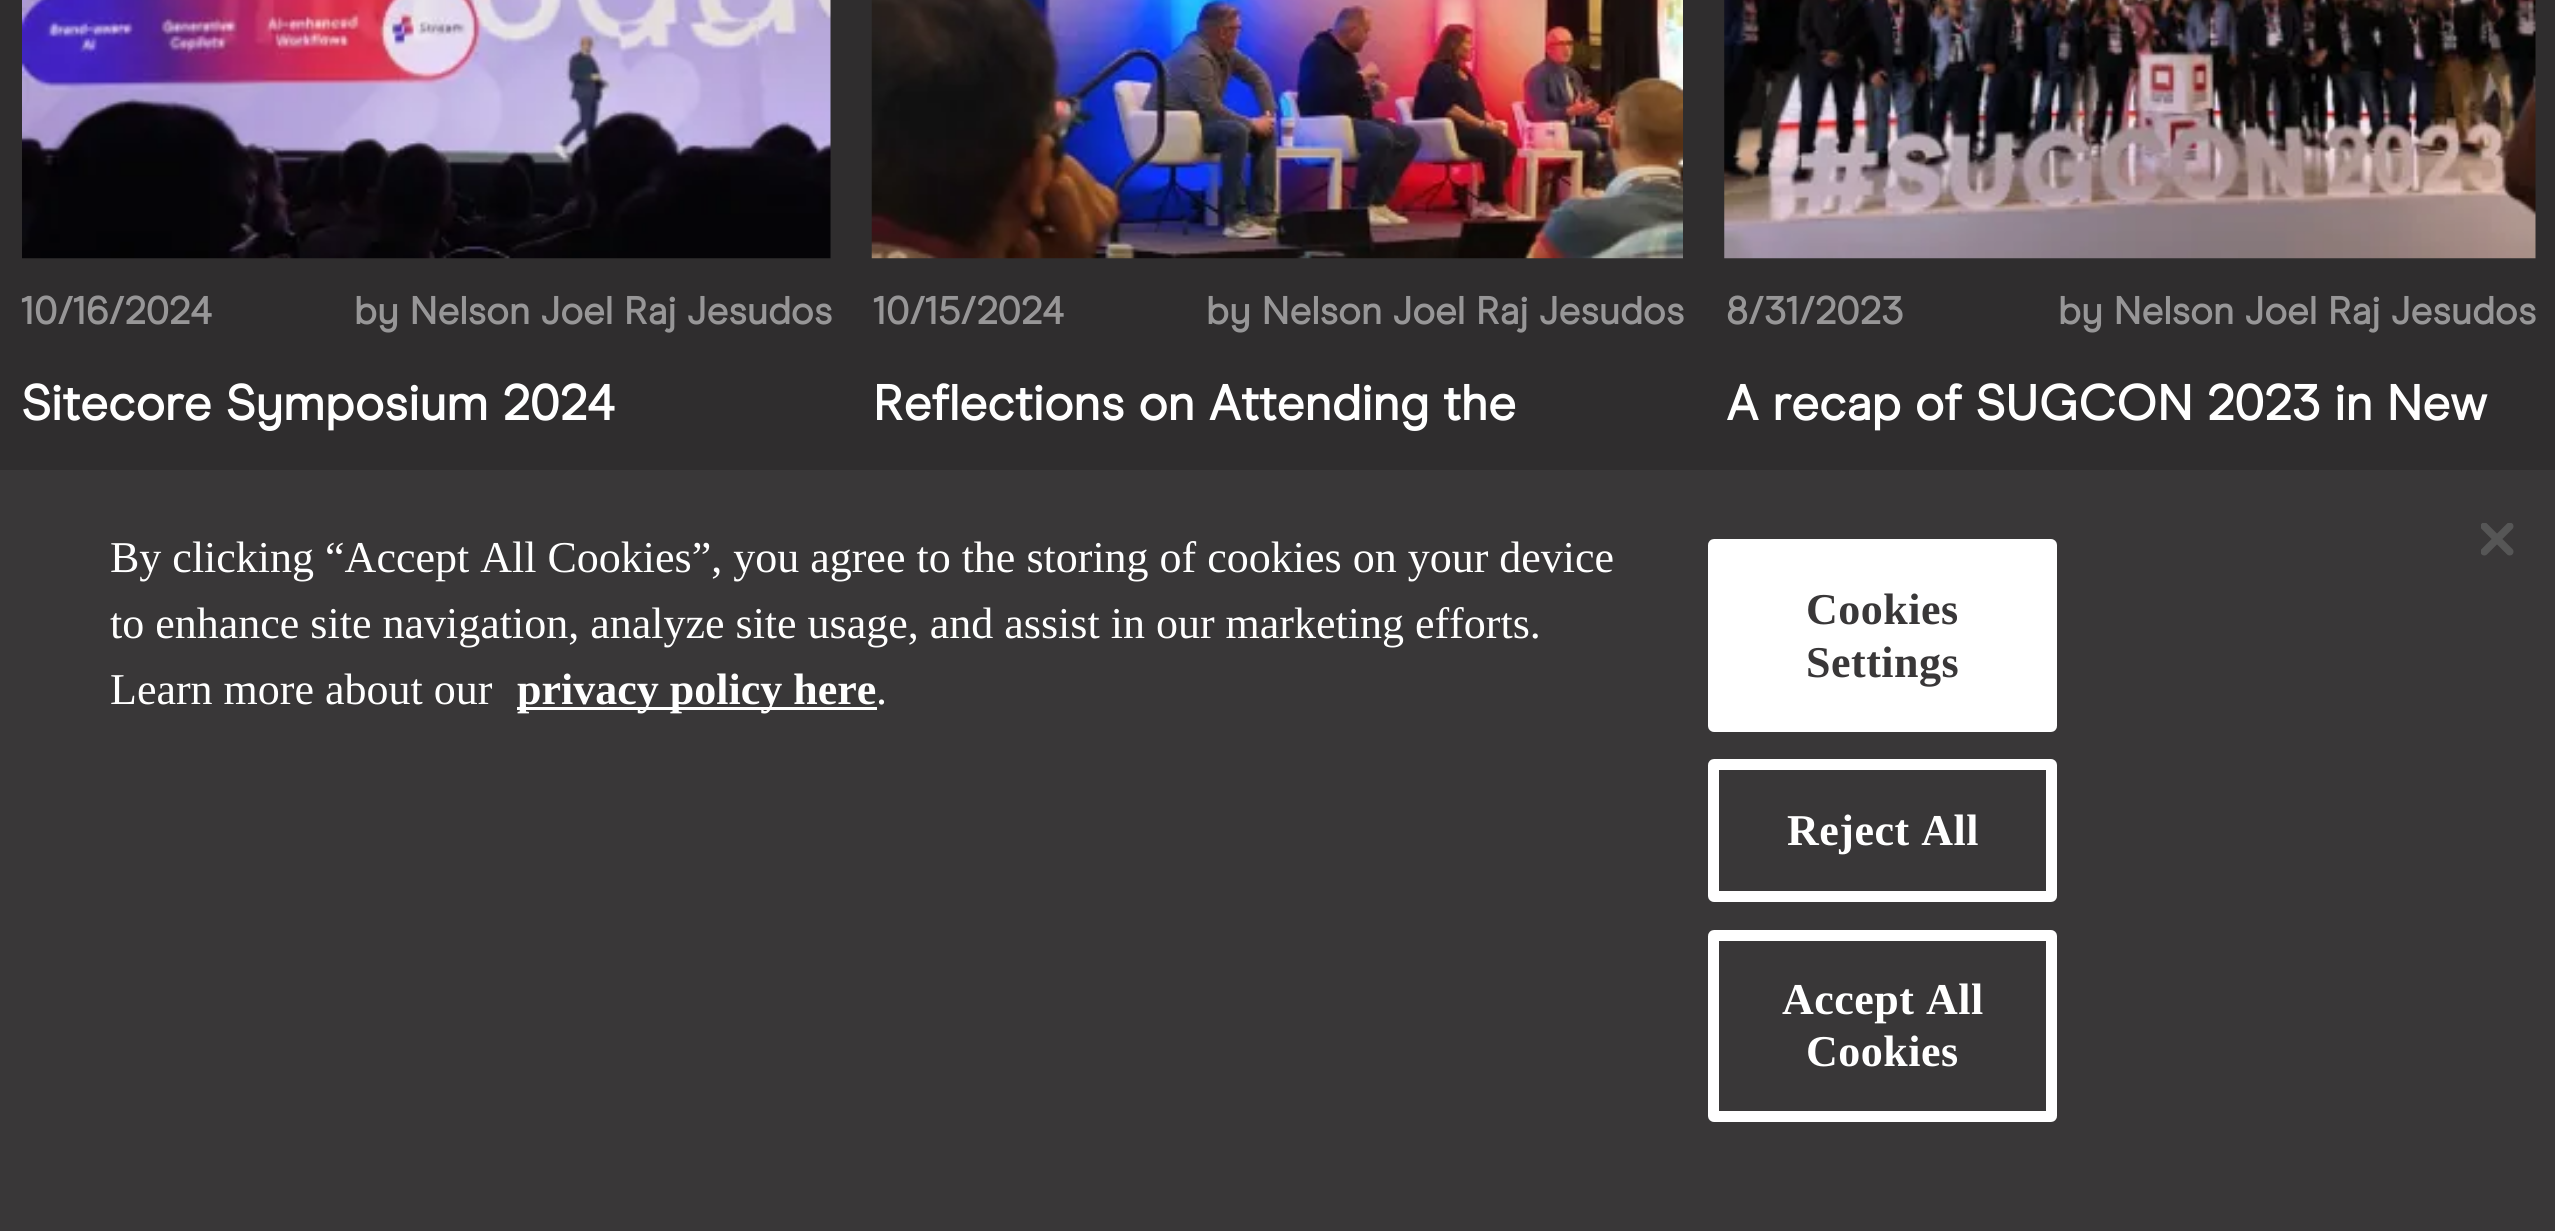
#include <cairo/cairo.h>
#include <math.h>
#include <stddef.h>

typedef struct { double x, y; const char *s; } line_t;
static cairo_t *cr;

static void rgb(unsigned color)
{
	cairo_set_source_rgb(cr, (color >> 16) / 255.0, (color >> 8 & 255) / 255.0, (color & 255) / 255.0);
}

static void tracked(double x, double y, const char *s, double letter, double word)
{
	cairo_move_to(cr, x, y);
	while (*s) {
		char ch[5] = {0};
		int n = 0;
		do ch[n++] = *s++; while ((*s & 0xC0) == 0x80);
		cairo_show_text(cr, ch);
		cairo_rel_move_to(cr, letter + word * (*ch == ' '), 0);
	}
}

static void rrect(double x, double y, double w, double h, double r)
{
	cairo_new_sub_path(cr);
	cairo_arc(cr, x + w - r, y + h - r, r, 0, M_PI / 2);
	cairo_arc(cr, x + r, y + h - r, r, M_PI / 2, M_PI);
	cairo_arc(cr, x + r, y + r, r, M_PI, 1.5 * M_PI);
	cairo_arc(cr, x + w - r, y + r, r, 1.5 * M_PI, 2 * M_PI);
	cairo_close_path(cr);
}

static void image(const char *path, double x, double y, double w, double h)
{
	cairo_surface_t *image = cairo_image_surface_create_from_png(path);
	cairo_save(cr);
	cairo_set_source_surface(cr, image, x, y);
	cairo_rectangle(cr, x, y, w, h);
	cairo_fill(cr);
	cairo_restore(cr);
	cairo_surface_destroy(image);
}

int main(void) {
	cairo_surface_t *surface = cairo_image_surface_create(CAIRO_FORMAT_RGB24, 2555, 1231);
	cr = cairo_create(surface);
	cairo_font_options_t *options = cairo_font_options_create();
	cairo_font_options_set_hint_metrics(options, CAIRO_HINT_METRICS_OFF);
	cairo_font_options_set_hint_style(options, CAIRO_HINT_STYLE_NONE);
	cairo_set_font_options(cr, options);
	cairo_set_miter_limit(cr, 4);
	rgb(0x2f2d2e);
	cairo_paint(cr);
	image("img/1.png", 22, 0, 809, 259);
	image("img/2.png", 871, 0, 812, 259);
	image("img/3.png", 1724, 0, 812, 259);
	rgb(0x393738);
	cairo_rectangle(cr, 0, 470, 2555, 761);
	cairo_fill(cr);
	rgb(0xffffff);
	cairo_rectangle(cr, 517, 707, 360, 3);
	cairo_fill(cr);
	rrect(1713.5, 544.5, 338, 182, 0.5);
	cairo_fill_preserve(cr);
	cairo_set_line_width(cr, 11);
	cairo_stroke(cr);
	rrect(1713.5, 764.5, 338, 132, 0.5);
	cairo_stroke(cr);
	rrect(1713.5, 935.5, 338, 181, 0.5);
	cairo_stroke(cr);
	image("img/4.png", 2481, 523, 33, 33);
	cairo_select_font_face(cr, "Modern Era", CAIRO_FONT_SLANT_NORMAL, CAIRO_FONT_WEIGHT_BOLD);
	cairo_set_font_size(cr, 38.5);
	rgb(0x979697);
	cairo_move_to(cr, 21, 324);
	cairo_show_text(cr, "10/16/2024");
	cairo_move_to(cr, 354, 324);
	cairo_show_text(cr, "by Nelson Joel Raj Jesudos");
	cairo_set_font_size(cr, 49.5);
	rgb(0xffffff);
	cairo_move_to(cr, 21, 420);
	cairo_show_text(cr, "Sitecore Symposium 2024");
	cairo_set_font_size(cr, 38.5);
	rgb(0x979697);
	cairo_move_to(cr, 873, 324);
	cairo_show_text(cr, "10/15/2024");
	cairo_move_to(cr, 1206, 324);
	cairo_show_text(cr, "by Nelson Joel Raj Jesudos");
	cairo_set_font_size(cr, 49.5);
	rgb(0xffffff);
	cairo_move_to(cr, 873, 420);
	cairo_show_text(cr, "Reflections on Attending the");
	cairo_set_font_size(cr, 38.5);
	rgb(0x979697);
	cairo_move_to(cr, 1726, 324);
	cairo_show_text(cr, "8/31/2023");
	cairo_move_to(cr, 2058, 324);
	cairo_show_text(cr, "by Nelson Joel Raj Jesudos");
	cairo_set_font_size(cr, 49.5);
	rgb(0xffffff);
	cairo_move_to(cr, 1726, 420);
	cairo_show_text(cr, "A recap of SUGCON 2023 in New");
	cairo_select_font_face(cr, "Liberation Serif", CAIRO_FONT_SLANT_NORMAL, CAIRO_FONT_WEIGHT_NORMAL);
	cairo_set_font_size(cr, 44);
	{
		static const line_t items[] = {
			{110, 572, "By clicking “Accept All Cookies”, you agree to the storing of cookies on your device"},
			{110, 638, "to enhance site navigation, analyze site usage, and assist in our marketing efforts."},
			{110, 704, "Learn more about our"},
		};
		for (size_t i = 0; i < sizeof items / sizeof *items; i++) {
			cairo_move_to(cr, items[i].x, items[i].y);
			cairo_show_text(cr, items[i].s);
		}
	}
	cairo_select_font_face(cr, "Liberation Serif", CAIRO_FONT_SLANT_NORMAL, CAIRO_FONT_WEIGHT_BOLD);
	cairo_move_to(cr, 517, 704);
	cairo_show_text(cr, "privacy policy here");
	cairo_select_font_face(cr, "Liberation Serif", CAIRO_FONT_SLANT_NORMAL, CAIRO_FONT_WEIGHT_NORMAL);
	cairo_move_to(cr, 876, 704);
	cairo_show_text(cr, ".");
	cairo_select_font_face(cr, "Liberation Serif", CAIRO_FONT_SLANT_NORMAL, CAIRO_FONT_WEIGHT_BOLD);
	rgb(0x393738);
	tracked(1806, 624, "Cookies", 0.5, 0);
	tracked(1806, 677, "Settings", 0.5, 0);
	rgb(0xffffff);
	{
		static const line_t items[] = {
			{1787, 845, "Reject All"},
			{1782, 1014, "Accept All"},
			{1806, 1066, "Cookies"},
		};
		for (size_t i = 0; i < sizeof items / sizeof *items; i++) {
			tracked(items[i].x, items[i].y, items[i].s, 0.5, 0);
		}
	}
	cairo_surface_write_to_png(surface, "page.png");
	cairo_font_options_destroy(options);
	cairo_destroy(cr);
	cairo_surface_destroy(surface);
	return 0;
}
